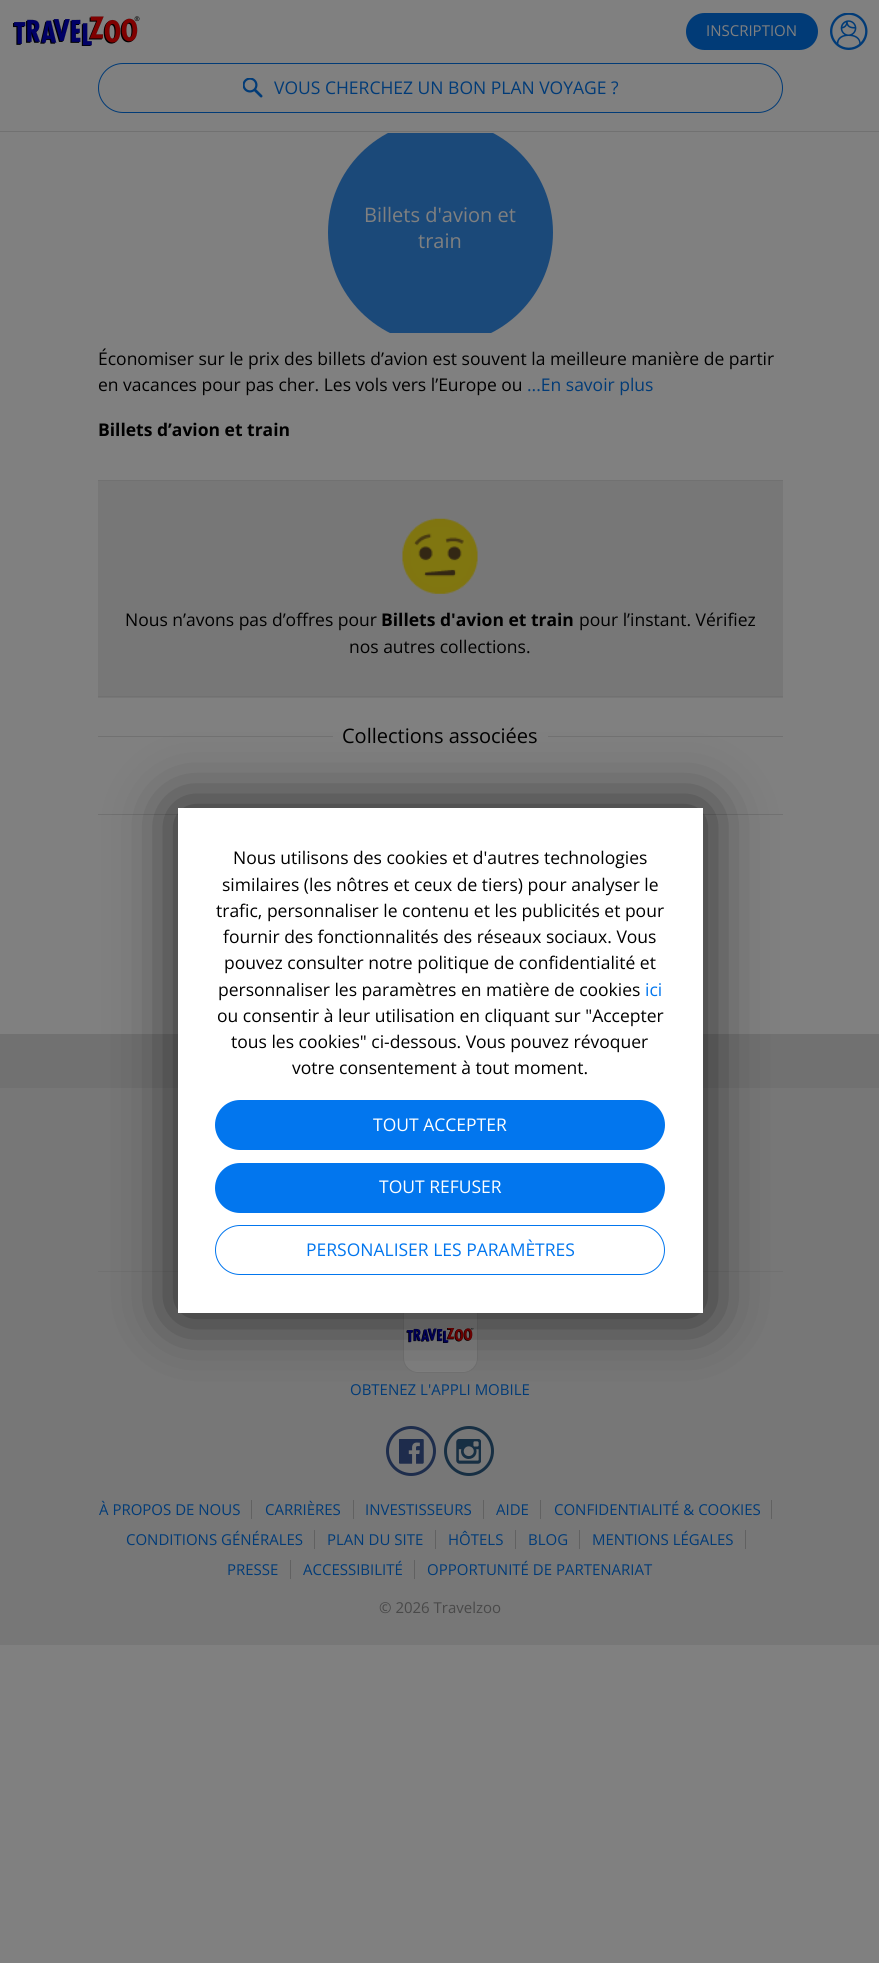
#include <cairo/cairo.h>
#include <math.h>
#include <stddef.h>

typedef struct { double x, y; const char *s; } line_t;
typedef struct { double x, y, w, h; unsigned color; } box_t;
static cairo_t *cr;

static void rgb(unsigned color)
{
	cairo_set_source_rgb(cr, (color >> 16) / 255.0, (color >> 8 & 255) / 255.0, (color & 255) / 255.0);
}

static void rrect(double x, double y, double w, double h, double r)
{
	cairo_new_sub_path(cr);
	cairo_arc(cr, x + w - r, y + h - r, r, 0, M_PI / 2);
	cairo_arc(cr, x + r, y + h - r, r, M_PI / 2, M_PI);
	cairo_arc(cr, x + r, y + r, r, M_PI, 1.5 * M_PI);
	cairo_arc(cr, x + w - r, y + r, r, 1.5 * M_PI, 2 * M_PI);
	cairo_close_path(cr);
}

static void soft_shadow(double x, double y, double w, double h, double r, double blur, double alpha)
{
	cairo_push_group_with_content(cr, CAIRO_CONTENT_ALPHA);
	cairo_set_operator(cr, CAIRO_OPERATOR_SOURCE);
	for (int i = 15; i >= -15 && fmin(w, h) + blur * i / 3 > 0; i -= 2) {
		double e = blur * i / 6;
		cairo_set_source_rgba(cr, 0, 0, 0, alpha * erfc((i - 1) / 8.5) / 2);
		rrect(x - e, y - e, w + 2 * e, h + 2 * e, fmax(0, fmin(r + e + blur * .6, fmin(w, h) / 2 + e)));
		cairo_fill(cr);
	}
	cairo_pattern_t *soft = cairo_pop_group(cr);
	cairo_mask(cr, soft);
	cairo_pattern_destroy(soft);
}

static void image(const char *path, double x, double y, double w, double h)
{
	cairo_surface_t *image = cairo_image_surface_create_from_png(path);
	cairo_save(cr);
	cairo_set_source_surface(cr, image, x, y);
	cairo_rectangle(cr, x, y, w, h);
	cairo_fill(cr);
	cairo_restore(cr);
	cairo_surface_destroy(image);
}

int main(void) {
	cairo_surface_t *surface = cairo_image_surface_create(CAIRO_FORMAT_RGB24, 879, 1963);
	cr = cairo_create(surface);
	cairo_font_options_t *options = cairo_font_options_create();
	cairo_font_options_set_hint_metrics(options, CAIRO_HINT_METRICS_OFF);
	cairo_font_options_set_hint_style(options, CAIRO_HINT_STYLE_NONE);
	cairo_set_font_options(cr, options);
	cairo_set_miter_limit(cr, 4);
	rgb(0x808080);
	cairo_paint(cr);
	image("img/1.png", 13, 16, 127, 30);
	rgb(0x013b77);
	rrect(686, 13, 132, 37, 18.5);
	cairo_fill(cr);
	image("img/2.png", 830, 13, 38, 37);
	rgb(0x717171);
	cairo_rectangle(cr, 0, 131, 879, 1);
	cairo_fill(cr);
	rrect(98.5, 63.5, 684, 49, 24.5);
	rgb(0x013b77);
	cairo_set_line_width(cr, 1);
	cairo_stroke(cr);
	image("img/3.png", 243, 78, 20, 20);
	cairo_save(cr);
	cairo_rectangle(cr, 0, 133, 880, 200);
	cairo_clip(cr);
	rgb(0x1b4979);
	cairo_arc(cr, 440.5, 232.5, 112.5, 0, 2 * M_PI);
	cairo_fill(cr);
	cairo_restore(cr);
	{
		static const box_t items[] = {
			{98, 481, 685, 217, 0x777777},
			{98, 480, 685, 1, 0x717171},
			{98, 696, 685, 1, 0x717171},
		};
		for (size_t i = 0; i < sizeof items / sizeof *items; i++) {
			rgb(items[i].color);
			cairo_rectangle(cr, items[i].x, items[i].y, items[i].w, items[i].h);
			cairo_fill(cr);
		}
	}
	image("img/4.png", 402, 518, 76, 76);
	{
		static const box_t items[] = {
			{98, 736, 235, 1, 0x717171},
			{548, 736, 235, 1, 0x717171},
			{98, 814, 80, 1, 0x717171},
			{703, 814, 80, 1, 0x717171},
			{0, 1088, 879, 557, 0x777777},
			{0, 1034, 879, 54, 0x717171},
			{98, 1271, 685, 1, 0x717171},
		};
		for (size_t i = 0; i < sizeof items / sizeof *items; i++) {
			rgb(items[i].color);
			cairo_rectangle(cr, items[i].x, items[i].y, items[i].w, items[i].h);
			cairo_fill(cr);
		}
	}
	rgb(0x808080);
	rrect(403.5, 1298.5, 74, 74, 14.5);
	cairo_fill_preserve(cr);
	rgb(0x717171);
	cairo_stroke(cr);
	image("img/5.png", 406, 1328, 68, 15);
	rgb(0x000000);
	soft_shadow(178, 809, 525, 505, 0, 31, 0.7);
	rgb(0xffffff);
	cairo_rectangle(cr, 178, 808, 525, 505);
	cairo_fill(cr);
	rgb(0x0276ee);
	rrect(215, 1100, 450, 50, 25);
	cairo_fill(cr);
	rrect(215, 1163, 450, 50, 25);
	cairo_fill(cr);
	rrect(215.5, 1225.5, 449, 49, 24.5);
	cairo_stroke(cr);
	cairo_arc(cr, 411, 1451, 23.5, 0, 2 * M_PI);
	rgb(0x1e2d4c);
	cairo_set_line_width(cr, 3);
	cairo_stroke(cr);
	image("img/6.png", 399, 1439, 25, 25);
	cairo_arc(cr, 469, 1451, 23.5, 0, 2 * M_PI);
	rgb(0x172f43);
	cairo_stroke(cr);
	image("img/7.png", 456, 1439, 25, 25);
	{
		static const box_t items[] = {
			{251, 1500, 1, 19, 0x616161},
			{353, 1500, 1, 19, 0x616161},
			{483, 1500, 1, 19, 0x616161},
			{540, 1500, 1, 19, 0x616161},
			{771, 1500, 1, 19, 0x616161},
			{314, 1530, 1, 19, 0x616161},
			{435, 1530, 1, 19, 0x616161},
			{515, 1530, 1, 19, 0x616161},
			{579, 1530, 1, 19, 0x616161},
			{745, 1530, 1, 19, 0x616161},
			{290, 1560, 1, 19, 0x616161},
			{414, 1560, 1, 19, 0x616161},
		};
		for (size_t i = 0; i < sizeof items / sizeof *items; i++) {
			rgb(items[i].color);
			cairo_rectangle(cr, items[i].x, items[i].y, items[i].w, items[i].h);
			cairo_fill(cr);
		}
	}
	cairo_select_font_face(cr, "Open Sans", CAIRO_FONT_SLANT_NORMAL, CAIRO_FONT_WEIGHT_NORMAL);
	cairo_set_font_size(cr, 15);
	rgb(0x808080);
	cairo_move_to(cr, 706, 36);
	cairo_show_text(cr, "INSCRIPTION");
	cairo_set_font_size(cr, 17.5);
	rgb(0x013b77);
	cairo_move_to(cr, 274, 94);
	cairo_show_text(cr, "VOUS CHERCHEZ UN BON PLAN VOYAGE ?");
	cairo_set_font_size(cr, 20);
	rgb(0x808080);
	cairo_move_to(cr, 364, 222);
	cairo_show_text(cr, "Billets d'avion et");
	cairo_move_to(cr, 418, 248);
	cairo_show_text(cr, "train");
	cairo_set_font_size(cr, 17.5);
	rgb(0x000000);
	cairo_move_to(cr, 98, 365);
	cairo_show_text(cr, "Économiser sur le prix des billets d’avion est souvent la meilleure manière de partir");
	cairo_move_to(cr, 98, 391);
	cairo_show_text(cr, "en vacances pour pas cher. Les vols vers l’Europe ou");
	rgb(0x013b77);
	cairo_move_to(cr, 527, 391);
	cairo_show_text(cr, "...En savoir plus");
	cairo_select_font_face(cr, "Open Sans", CAIRO_FONT_SLANT_NORMAL, CAIRO_FONT_WEIGHT_BOLD);
	rgb(0x000000);
	cairo_move_to(cr, 98, 436);
	cairo_show_text(cr, "Billets d’avion et train");
	cairo_select_font_face(cr, "Open Sans", CAIRO_FONT_SLANT_NORMAL, CAIRO_FONT_WEIGHT_NORMAL);
	cairo_move_to(cr, 125, 626);
	cairo_show_text(cr, "Nous n’avons pas d’offres pour");
	cairo_select_font_face(cr, "Open Sans", CAIRO_FONT_SLANT_NORMAL, CAIRO_FONT_WEIGHT_BOLD);
	cairo_move_to(cr, 381, 626);
	cairo_show_text(cr, "Billets d'avion et train");
	cairo_select_font_face(cr, "Open Sans", CAIRO_FONT_SLANT_NORMAL, CAIRO_FONT_WEIGHT_NORMAL);
	cairo_move_to(cr, 579, 626);
	cairo_show_text(cr, "pour l’instant. Vérifiez");
	cairo_move_to(cr, 349, 653);
	cairo_show_text(cr, "nos autres collections.");
	cairo_set_font_size(cr, 20);
	cairo_move_to(cr, 342, 743);
	cairo_show_text(cr, "Collections associées");
	cairo_set_font_size(cr, 17.5);
	{
		static const line_t items[] = {
			{233, 864, "Nous utilisons des cookies et d'autres technologies"},
			{222, 891, "similaires (les nôtres et ceux de tiers) pour analyser le"},
			{216, 917, "trafic, personnaliser le contenu et les publicités et pour"},
			{223, 943, "fournir des fonctionnalités des réseaux sociaux. Vous"},
			{224, 969, "pouvez consulter notre politique de confidentialité et"},
			{218, 996, "personnaliser les paramètres en matière de cookies"},
		};
		for (size_t i = 0; i < sizeof items / sizeof *items; i++) {
			cairo_move_to(cr, items[i].x, items[i].y);
			cairo_show_text(cr, items[i].s);
		}
	}
	rgb(0x0276ee);
	cairo_move_to(cr, 645, 996);
	cairo_show_text(cr, "ici");
	rgb(0x000000);
	{
		static const line_t items[] = {
			{217, 1022, "ou consentir à leur utilisation en cliquant sur \"Accepter"},
			{231, 1048, "tous les cookies\" ci-dessous. Vous pouvez révoquer"},
			{292, 1074, "votre consentement à tout moment."},
		};
		for (size_t i = 0; i < sizeof items / sizeof *items; i++) {
			cairo_move_to(cr, items[i].x, items[i].y);
			cairo_show_text(cr, items[i].s);
		}
	}
	rgb(0xffffff);
	cairo_move_to(cr, 373, 1131);
	cairo_show_text(cr, "TOUT ACCEPTER");
	cairo_move_to(cr, 379, 1193);
	cairo_show_text(cr, "TOUT REFUSER");
	rgb(0x0276ee);
	cairo_move_to(cr, 306, 1256);
	cairo_show_text(cr, "PERSONALISER LES PARAMÈTRES");
	cairo_set_font_size(cr, 15);
	rgb(0x013b77);
	{
		static const line_t items[] = {
			{350, 1395, "OBTENEZ L'APPLI MOBILE"},
			{99, 1515, "À PROPOS DE NOUS"},
			{265, 1515, "CARRIÈRES"},
			{365, 1515, "INVESTISSEURS"},
			{496, 1515, "AIDE"},
			{554, 1515, "CONFIDENTIALITÉ & COOKIES"},
			{126, 1545, "CONDITIONS GÉNÉRALES"},
			{327, 1545, "PLAN DU SITE"},
			{448, 1545, "HÔTELS"},
			{528, 1545, "BLOG"},
			{592, 1545, "MENTIONS LÉGALES"},
			{227, 1575, "PRESSE"},
			{303, 1575, "ACCESSIBILITÉ"},
			{427, 1575, "OPPORTUNITÉ DE PARTENARIAT"},
		};
		for (size_t i = 0; i < sizeof items / sizeof *items; i++) {
			cairo_move_to(cr, items[i].x, items[i].y);
			cairo_show_text(cr, items[i].s);
		}
	}
	rgb(0x494949);
	cairo_move_to(cr, 379, 1613);
	cairo_show_text(cr, "© 2026 Travelzoo");
	cairo_surface_write_to_png(surface, "page.png");
	cairo_font_options_destroy(options);
	cairo_destroy(cr);
	cairo_surface_destroy(surface);
	return 0;
}
